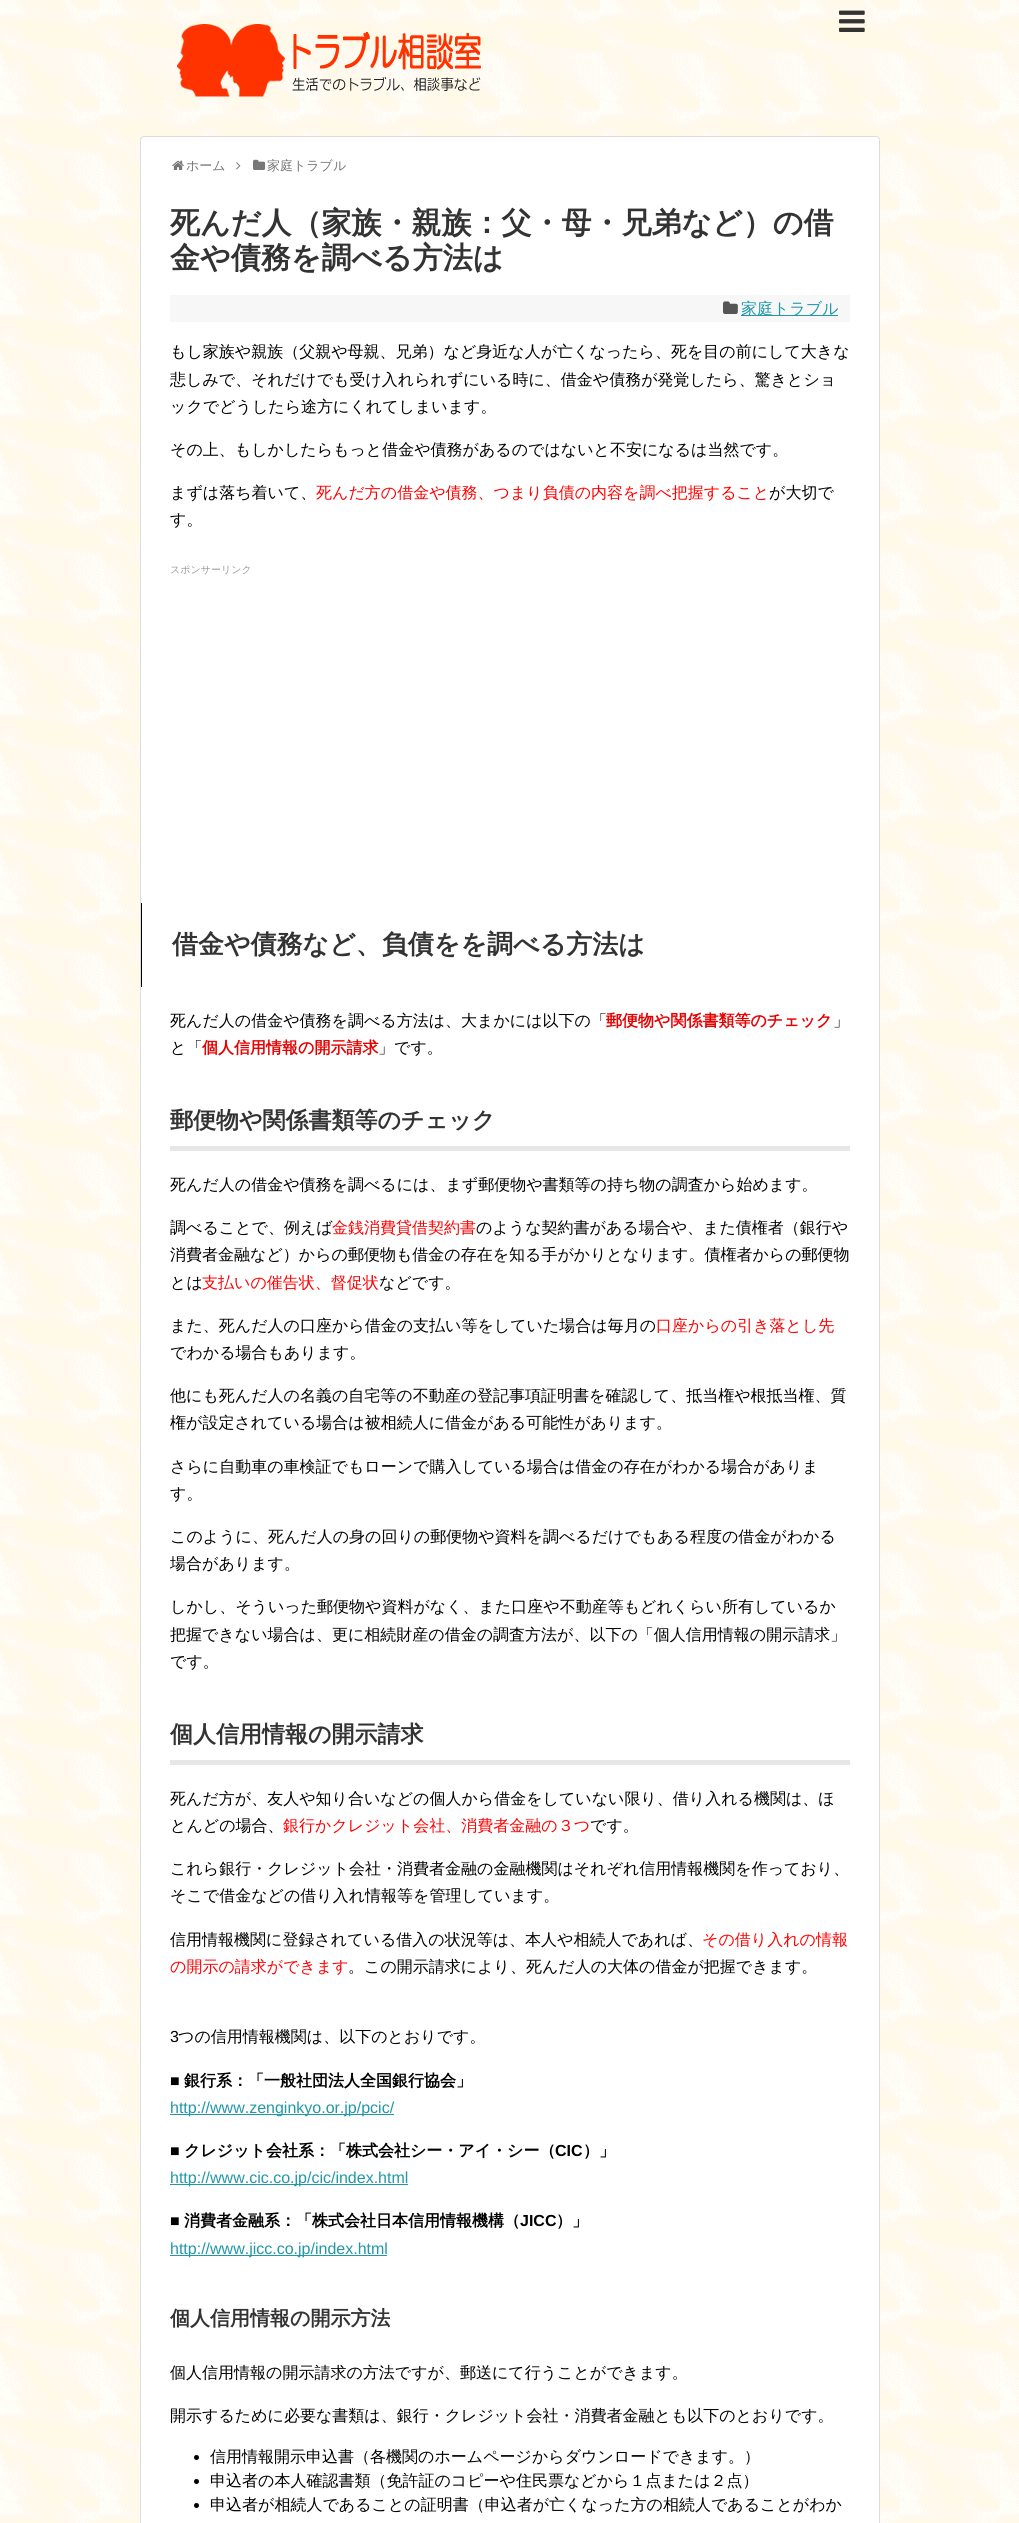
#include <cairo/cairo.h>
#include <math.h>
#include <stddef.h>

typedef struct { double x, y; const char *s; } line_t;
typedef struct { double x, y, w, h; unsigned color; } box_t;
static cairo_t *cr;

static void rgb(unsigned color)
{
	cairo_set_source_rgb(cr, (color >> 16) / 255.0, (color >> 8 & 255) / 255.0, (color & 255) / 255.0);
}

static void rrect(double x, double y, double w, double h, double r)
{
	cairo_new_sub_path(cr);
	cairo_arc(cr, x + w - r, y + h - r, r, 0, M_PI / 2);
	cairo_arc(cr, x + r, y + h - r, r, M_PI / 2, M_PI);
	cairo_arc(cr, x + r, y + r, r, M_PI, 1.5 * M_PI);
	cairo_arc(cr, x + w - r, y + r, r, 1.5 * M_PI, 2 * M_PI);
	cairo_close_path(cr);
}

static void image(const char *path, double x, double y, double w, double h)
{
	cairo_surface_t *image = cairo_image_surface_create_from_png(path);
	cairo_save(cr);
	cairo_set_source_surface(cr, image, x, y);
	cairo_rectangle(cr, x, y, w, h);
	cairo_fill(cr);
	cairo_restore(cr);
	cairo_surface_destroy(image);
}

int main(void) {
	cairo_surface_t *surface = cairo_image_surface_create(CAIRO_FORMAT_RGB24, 1019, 2523);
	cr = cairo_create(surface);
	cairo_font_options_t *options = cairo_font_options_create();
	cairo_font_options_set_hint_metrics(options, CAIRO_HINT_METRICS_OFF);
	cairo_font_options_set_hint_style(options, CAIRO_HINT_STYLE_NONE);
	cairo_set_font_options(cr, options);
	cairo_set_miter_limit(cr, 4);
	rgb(0xffffff);
	cairo_paint(cr);
	image("img/1.png", 0, 0, 1019, 2523);
	image("img/2.png", 839, 10, 26, 22);
	image("img/3.png", 177, 24, 304, 73);
	rgb(0xffffff);
	rrect(140.5, 136.5, 739, 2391, 3.5);
	cairo_fill_preserve(cr);
	rgb(0xdddddd);
	cairo_set_line_width(cr, 1);
	cairo_stroke(cr);
	image("img/4.png", 172, 160, 12, 10);
	image("img/5.png", 236, 162, 5, 8);
	image("img/6.png", 253, 159, 13, 11);
	rgb(0xf7f7f7);
	cairo_rectangle(cr, 170, 295, 680, 27);
	cairo_fill(cr);
	image("img/7.png", 723, 301, 15, 13);
	{
		static const box_t items[] = {
			{741, 315, 97, 1, 0x2098a8},
			{141, 903, 1, 84, 0x000000},
			{170, 1146, 680, 5, 0xe7e7e7},
			{170, 1760, 680, 5, 0xe7e7e7},
			{170, 2114, 224, 1, 0x2098a8},
			{170, 2184, 238, 1, 0x2098a8},
			{170, 2255, 217, 1, 0x2098a8},
		};
		for (size_t i = 0; i < sizeof items / sizeof *items; i++) {
			rgb(items[i].color);
			cairo_rectangle(cr, items[i].x, items[i].y, items[i].w, items[i].h);
			cairo_fill(cr);
		}
	}
	rgb(0x000000);
	cairo_arc(cr, 196.5, 2457.5, 2.5, 0, 2 * M_PI);
	cairo_fill(cr);
	cairo_arc(cr, 196.5, 2481.5, 2.5, 0, 2 * M_PI);
	cairo_fill(cr);
	cairo_arc(cr, 196.5, 2505.5, 2.5, 0, 2 * M_PI);
	cairo_fill(cr);
	cairo_select_font_face(cr, "WenQuanYi Zen Hei Medium", CAIRO_FONT_SLANT_NORMAL, CAIRO_FONT_WEIGHT_NORMAL);
	cairo_set_font_size(cr, 13);
	rgb(0x777777);
	cairo_move_to(cr, 186, 170);
	cairo_show_text(cr, "ホーム");
	cairo_move_to(cr, 267, 170);
	cairo_show_text(cr, "家庭トラブル");
	cairo_select_font_face(cr, "WenQuanYi Zen Hei", CAIRO_FONT_SLANT_NORMAL, CAIRO_FONT_WEIGHT_BOLD);
	cairo_set_font_size(cr, 30);
	rgb(0x333333);
	cairo_move_to(cr, 170, 233);
	cairo_show_text(cr, "死んだ人（家族・親族：父・母・兄弟など）の借");
	cairo_move_to(cr, 170, 268);
	cairo_show_text(cr, "金や債務を調べる方法は");
	cairo_select_font_face(cr, "WenQuanYi Zen Hei Medium", CAIRO_FONT_SLANT_NORMAL, CAIRO_FONT_WEIGHT_NORMAL);
	cairo_set_font_size(cr, 16);
	rgb(0x2098a8);
	cairo_move_to(cr, 741, 314);
	cairo_show_text(cr, "家庭トラブル");
	rgb(0x000000);
	{
		static const line_t items[] = {
			{170, 357, "もし家族や親族（父親や母親、兄弟）など身近な人が亡くなったら、死を目の前にして大きな"},
			{170, 385, "悲しみで、それだけでも受け入れられずにいる時に、借金や債務が発覚したら、驚きとショ"},
			{170, 412, "ックでどうしたら途方にくれてしまいます。"},
			{170, 455, "その上、もしかしたらもっと借金や債務があるのではないと不安になるは当然です。"},
			{170, 498, "まずは落ち着いて、"},
		};
		for (size_t i = 0; i < sizeof items / sizeof *items; i++) {
			cairo_move_to(cr, items[i].x, items[i].y);
			cairo_show_text(cr, items[i].s);
		}
	}
	rgb(0xff0000);
	cairo_move_to(cr, 316, 498);
	cairo_show_text(cr, "死んだ方の借金や債務、つまり負債の内容を調べ把握すること");
	rgb(0x000000);
	cairo_move_to(cr, 769, 498);
	cairo_show_text(cr, "が大切で");
	cairo_move_to(cr, 170, 525);
	cairo_show_text(cr, "す。");
	cairo_set_font_size(cr, 10);
	rgb(0x999999);
	cairo_move_to(cr, 170, 573);
	cairo_show_text(cr, "スポンサーリンク");
	cairo_select_font_face(cr, "WenQuanYi Zen Hei", CAIRO_FONT_SLANT_NORMAL, CAIRO_FONT_WEIGHT_BOLD);
	cairo_set_font_size(cr, 26);
	rgb(0x333333);
	cairo_move_to(cr, 172, 953);
	cairo_show_text(cr, "借金や債務など、負債をを調べる方法は");
	cairo_select_font_face(cr, "WenQuanYi Zen Hei Medium", CAIRO_FONT_SLANT_NORMAL, CAIRO_FONT_WEIGHT_NORMAL);
	cairo_set_font_size(cr, 16);
	rgb(0x000000);
	cairo_move_to(cr, 170, 1026);
	cairo_show_text(cr, "死んだ人の借金や債務を調べる方法は、大まかには以下の「");
	cairo_select_font_face(cr, "WenQuanYi Zen Hei", CAIRO_FONT_SLANT_NORMAL, CAIRO_FONT_WEIGHT_BOLD);
	rgb(0xe50202);
	cairo_move_to(cr, 606, 1026);
	cairo_show_text(cr, "郵便物や関係書類等のチェック");
	cairo_select_font_face(cr, "WenQuanYi Zen Hei Medium", CAIRO_FONT_SLANT_NORMAL, CAIRO_FONT_WEIGHT_NORMAL);
	rgb(0x000000);
	cairo_move_to(cr, 833, 1026);
	cairo_show_text(cr, "」");
	cairo_move_to(cr, 170, 1053);
	cairo_show_text(cr, "と「");
	cairo_select_font_face(cr, "WenQuanYi Zen Hei", CAIRO_FONT_SLANT_NORMAL, CAIRO_FONT_WEIGHT_BOLD);
	rgb(0xe50202);
	cairo_move_to(cr, 202, 1053);
	cairo_show_text(cr, "個人信用情報の開示請求");
	cairo_select_font_face(cr, "WenQuanYi Zen Hei Medium", CAIRO_FONT_SLANT_NORMAL, CAIRO_FONT_WEIGHT_NORMAL);
	rgb(0x000000);
	cairo_move_to(cr, 378, 1053);
	cairo_show_text(cr, "」です。");
	cairo_select_font_face(cr, "WenQuanYi Zen Hei", CAIRO_FONT_SLANT_NORMAL, CAIRO_FONT_WEIGHT_BOLD);
	cairo_set_font_size(cr, 23);
	rgb(0x333333);
	cairo_move_to(cr, 170, 1128);
	cairo_show_text(cr, "郵便物や関係書類等のチェック");
	cairo_select_font_face(cr, "WenQuanYi Zen Hei Medium", CAIRO_FONT_SLANT_NORMAL, CAIRO_FONT_WEIGHT_NORMAL);
	cairo_set_font_size(cr, 16);
	rgb(0x000000);
	cairo_move_to(cr, 170, 1190);
	cairo_show_text(cr, "死んだ人の借金や債務を調べるには、まず郵便物や書類等の持ち物の調査から始めます。");
	cairo_move_to(cr, 170, 1233);
	cairo_show_text(cr, "調べることで、例えば");
	rgb(0xff0000);
	cairo_move_to(cr, 332, 1233);
	cairo_show_text(cr, "金銭消費貸借契約書");
	rgb(0x000000);
	{
		static const line_t items[] = {
			{476, 1233, "のような契約書がある場合や、また債権者（銀行や"},
			{170, 1260, "消費者金融など）からの郵便物も借金の存在を知る手がかりとなります。債権者からの郵便物"},
			{170, 1288, "とは"},
		};
		for (size_t i = 0; i < sizeof items / sizeof *items; i++) {
			cairo_move_to(cr, items[i].x, items[i].y);
			cairo_show_text(cr, items[i].s);
		}
	}
	rgb(0xff0000);
	cairo_move_to(cr, 202, 1288);
	cairo_show_text(cr, "支払いの催告状、督促状");
	rgb(0x000000);
	cairo_move_to(cr, 379, 1288);
	cairo_show_text(cr, "などです。");
	cairo_move_to(cr, 170, 1331);
	cairo_show_text(cr, "また、死んだ人の口座から借金の支払い等をしていた場合は毎月の");
	rgb(0xff0000);
	cairo_move_to(cr, 656, 1331);
	cairo_show_text(cr, "口座からの引き落とし先");
	rgb(0x000000);
	{
		static const line_t items[] = {
			{170, 1358, "でわかる場合もあります。"},
			{170, 1401, "他にも死んだ人の名義の自宅等の不動産の登記事項証明書を確認して、抵当権や根抵当権、質"},
			{170, 1428, "権が設定されている場合は被相続人に借金がある可能性があります。"},
			{170, 1472, "さらに自動車の車検証でもローンで購入している場合は借金の存在がわかる場合がありま"},
			{170, 1499, "す。"},
			{170, 1542, "このように、死んだ人の身の回りの郵便物や資料を調べるだけでもある程度の借金がわかる"},
			{170, 1569, "場合があります。"},
			{170, 1612, "しかし、そういった郵便物や資料がなく、また口座や不動産等もどれくらい所有しているか"},
			{170, 1640, "把握できない場合は、更に相続財産の借金の調査方法が、以下の「個人信用情報の開示請求」"},
			{170, 1667, "です。"},
		};
		for (size_t i = 0; i < sizeof items / sizeof *items; i++) {
			cairo_move_to(cr, items[i].x, items[i].y);
			cairo_show_text(cr, items[i].s);
		}
	}
	cairo_select_font_face(cr, "WenQuanYi Zen Hei", CAIRO_FONT_SLANT_NORMAL, CAIRO_FONT_WEIGHT_BOLD);
	cairo_set_font_size(cr, 23);
	rgb(0x333333);
	cairo_move_to(cr, 170, 1742);
	cairo_show_text(cr, "個人信用情報の開示請求");
	cairo_select_font_face(cr, "WenQuanYi Zen Hei Medium", CAIRO_FONT_SLANT_NORMAL, CAIRO_FONT_WEIGHT_NORMAL);
	cairo_set_font_size(cr, 16);
	rgb(0x000000);
	cairo_move_to(cr, 170, 1804);
	cairo_show_text(cr, "死んだ方が、友人や知り合いなどの個人から借金をしていない限り、借り入れる機関は、ほ");
	cairo_move_to(cr, 170, 1831);
	cairo_show_text(cr, "とんどの場合、");
	rgb(0xff0000);
	cairo_move_to(cr, 283, 1831);
	cairo_show_text(cr, "銀行かクレジット会社、消費者金融の３つ");
	rgb(0x000000);
	{
		static const line_t items[] = {
			{590, 1831, "です。"},
			{170, 1874, "これら銀行・クレジット会社・消費者金融の金融機関はそれぞれ信用情報機関を作っており、"},
			{170, 1901, "そこで借金などの借り入れ情報等を管理しています。"},
			{170, 1945, "信用情報機関に登録されている借入の状況等は、本人や相続人であれば、"},
		};
		for (size_t i = 0; i < sizeof items / sizeof *items; i++) {
			cairo_move_to(cr, items[i].x, items[i].y);
			cairo_show_text(cr, items[i].s);
		}
	}
	rgb(0xff0000);
	cairo_move_to(cr, 702, 1945);
	cairo_show_text(cr, "その借り入れの情報");
	cairo_move_to(cr, 170, 1972);
	cairo_show_text(cr, "の開示の請求ができます");
	rgb(0x000000);
	cairo_move_to(cr, 348, 1972);
	cairo_show_text(cr, "。この開示請求により、死んだ人の大体の借金が把握できます。");
	cairo_select_font_face(cr, "Liberation Sans", CAIRO_FONT_SLANT_NORMAL, CAIRO_FONT_WEIGHT_NORMAL);
	cairo_move_to(cr, 170, 2042);
	cairo_show_text(cr, "3");
	cairo_select_font_face(cr, "WenQuanYi Zen Hei Medium", CAIRO_FONT_SLANT_NORMAL, CAIRO_FONT_WEIGHT_NORMAL);
	cairo_move_to(cr, 178, 2042);
	cairo_show_text(cr, "つの信用情報機関は、以下のとおりです。");
	cairo_select_font_face(cr, "Liberation Sans", CAIRO_FONT_SLANT_NORMAL, CAIRO_FONT_WEIGHT_BOLD);
	cairo_move_to(cr, 170, 2086);
	cairo_show_text(cr, "■");
	cairo_select_font_face(cr, "WenQuanYi Zen Hei", CAIRO_FONT_SLANT_NORMAL, CAIRO_FONT_WEIGHT_BOLD);
	cairo_move_to(cr, 184, 2086);
	cairo_show_text(cr, "銀行系：「一般社団法人全国銀行協会」");
	cairo_select_font_face(cr, "Liberation Sans", CAIRO_FONT_SLANT_NORMAL, CAIRO_FONT_WEIGHT_NORMAL);
	rgb(0x2098a8);
	cairo_move_to(cr, 170, 2113);
	cairo_show_text(cr, "http://www.zenginkyo.or.jp/pcic/");
	cairo_select_font_face(cr, "Liberation Sans", CAIRO_FONT_SLANT_NORMAL, CAIRO_FONT_WEIGHT_BOLD);
	rgb(0x000000);
	cairo_move_to(cr, 170, 2156);
	cairo_show_text(cr, "■");
	cairo_select_font_face(cr, "WenQuanYi Zen Hei", CAIRO_FONT_SLANT_NORMAL, CAIRO_FONT_WEIGHT_BOLD);
	cairo_move_to(cr, 184, 2156);
	cairo_show_text(cr, "クレジット会社系：「株式会社シー・アイ・シー（");
	cairo_select_font_face(cr, "Liberation Sans", CAIRO_FONT_SLANT_NORMAL, CAIRO_FONT_WEIGHT_BOLD);
	cairo_move_to(cr, 555, 2156);
	cairo_show_text(cr, "CIC");
	cairo_select_font_face(cr, "WenQuanYi Zen Hei", CAIRO_FONT_SLANT_NORMAL, CAIRO_FONT_WEIGHT_BOLD);
	cairo_move_to(cr, 583, 2156);
	cairo_show_text(cr, "）」");
	cairo_select_font_face(cr, "Liberation Sans", CAIRO_FONT_SLANT_NORMAL, CAIRO_FONT_WEIGHT_NORMAL);
	rgb(0x2098a8);
	cairo_move_to(cr, 170, 2183);
	cairo_show_text(cr, "http://www.cic.co.jp/cic/index.html");
	cairo_select_font_face(cr, "Liberation Sans", CAIRO_FONT_SLANT_NORMAL, CAIRO_FONT_WEIGHT_BOLD);
	rgb(0x000000);
	cairo_move_to(cr, 170, 2226);
	cairo_show_text(cr, "■");
	cairo_select_font_face(cr, "WenQuanYi Zen Hei", CAIRO_FONT_SLANT_NORMAL, CAIRO_FONT_WEIGHT_BOLD);
	cairo_move_to(cr, 184, 2226);
	cairo_show_text(cr, "消費者金融系：「株式会社日本信用情報機構（");
	cairo_select_font_face(cr, "Liberation Sans", CAIRO_FONT_SLANT_NORMAL, CAIRO_FONT_WEIGHT_BOLD);
	cairo_move_to(cr, 520, 2226);
	cairo_show_text(cr, "JICC");
	cairo_select_font_face(cr, "WenQuanYi Zen Hei", CAIRO_FONT_SLANT_NORMAL, CAIRO_FONT_WEIGHT_BOLD);
	cairo_move_to(cr, 556, 2226);
	cairo_show_text(cr, "）」");
	cairo_select_font_face(cr, "Liberation Sans", CAIRO_FONT_SLANT_NORMAL, CAIRO_FONT_WEIGHT_NORMAL);
	rgb(0x2098a8);
	cairo_move_to(cr, 170, 2254);
	cairo_show_text(cr, "http://www.jicc.co.jp/index.html");
	cairo_select_font_face(cr, "WenQuanYi Zen Hei", CAIRO_FONT_SLANT_NORMAL, CAIRO_FONT_WEIGHT_BOLD);
	cairo_set_font_size(cr, 20);
	rgb(0x333333);
	cairo_move_to(cr, 170, 2325);
	cairo_show_text(cr, "個人信用情報の開示方法");
	cairo_select_font_face(cr, "WenQuanYi Zen Hei Medium", CAIRO_FONT_SLANT_NORMAL, CAIRO_FONT_WEIGHT_NORMAL);
	cairo_set_font_size(cr, 16);
	rgb(0x000000);
	{
		static const line_t items[] = {
			{170, 2378, "個人信用情報の開示請求の方法ですが、郵送にて行うことができます。"},
			{170, 2421, "開示するために必要な書類は、銀行・クレジット会社・消費者金融とも以下のとおりです。"},
			{210, 2462, "信用情報開示申込書（各機関のホームページからダウンロードできます。）"},
			{210, 2486, "申込者の本人確認書類（免許証のコピーや住民票などから１点または２点）"},
			{210, 2510, "申込者が相続人であることの証明書（申込者が亡くなった方の相続人であることがわか"},
		};
		for (size_t i = 0; i < sizeof items / sizeof *items; i++) {
			cairo_move_to(cr, items[i].x, items[i].y);
			cairo_show_text(cr, items[i].s);
		}
	}
	cairo_surface_write_to_png(surface, "page.png");
	cairo_font_options_destroy(options);
	cairo_destroy(cr);
	cairo_surface_destroy(surface);
	return 0;
}
